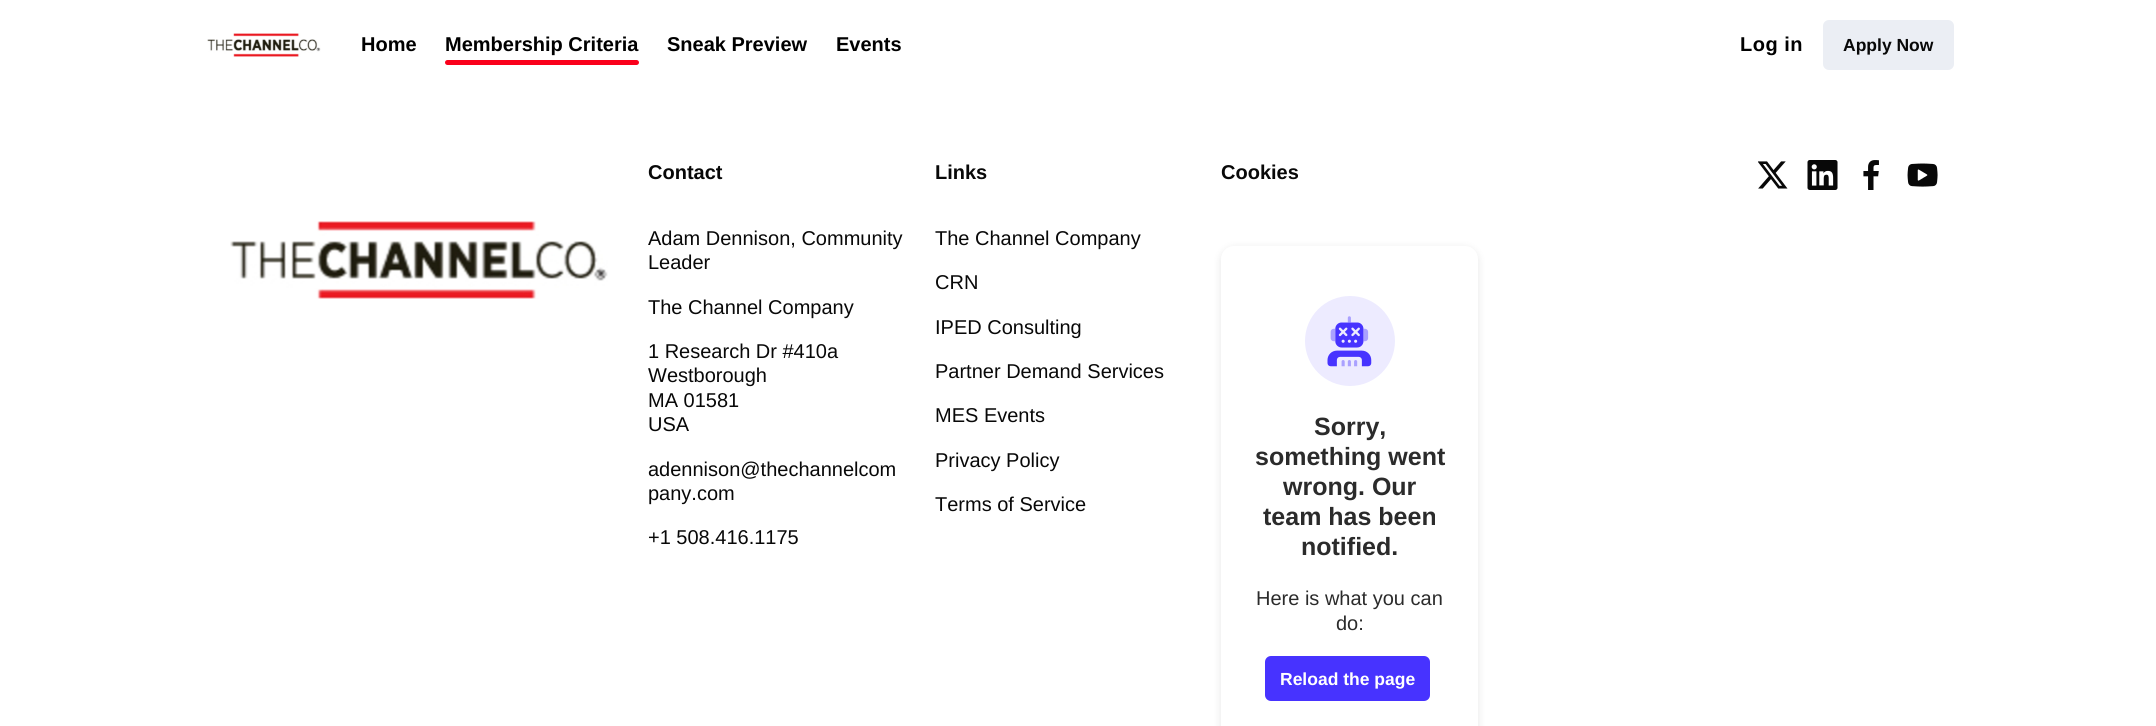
#include <cairo/cairo.h>
#include <math.h>
#include <stddef.h>

typedef struct { double x, y; const char *s; } line_t;
static cairo_t *cr;

static void rgb(unsigned color)
{
	cairo_set_source_rgb(cr, (color >> 16) / 255.0, (color >> 8 & 255) / 255.0, (color & 255) / 255.0);
}

static void tracked(double x, double y, const char *s, double letter, double word)
{
	cairo_move_to(cr, x, y);
	while (*s) {
		char ch[5] = {0};
		int n = 0;
		do ch[n++] = *s++; while ((*s & 0xC0) == 0x80);
		cairo_show_text(cr, ch);
		cairo_rel_move_to(cr, letter + word * (*ch == ' '), 0);
	}
}

static void rrect(double x, double y, double w, double h, double r)
{
	cairo_new_sub_path(cr);
	cairo_arc(cr, x + w - r, y + h - r, r, 0, M_PI / 2);
	cairo_arc(cr, x + r, y + h - r, r, M_PI / 2, M_PI);
	cairo_arc(cr, x + r, y + r, r, M_PI, 1.5 * M_PI);
	cairo_arc(cr, x + w - r, y + r, r, 1.5 * M_PI, 2 * M_PI);
	cairo_close_path(cr);
}

static void soft_shadow(double x, double y, double w, double h, double r, double blur, double alpha)
{
	cairo_push_group_with_content(cr, CAIRO_CONTENT_ALPHA);
	cairo_set_operator(cr, CAIRO_OPERATOR_SOURCE);
	for (int i = 15; i >= -15 && fmin(w, h) + blur * i / 3 > 0; i -= 2) {
		double e = blur * i / 6;
		cairo_set_source_rgba(cr, 0, 0, 0, alpha * erfc((i - 1) / 8.5) / 2);
		rrect(x - e, y - e, w + 2 * e, h + 2 * e, fmax(0, fmin(r + e + blur * .6, fmin(w, h) / 2 + e)));
		cairo_fill(cr);
	}
	cairo_pattern_t *soft = cairo_pop_group(cr);
	cairo_mask(cr, soft);
	cairo_pattern_destroy(soft);
}

static void image(const char *path, double x, double y, double w, double h)
{
	cairo_surface_t *image = cairo_image_surface_create_from_png(path);
	cairo_save(cr);
	cairo_set_source_surface(cr, image, x, y);
	cairo_rectangle(cr, x, y, w, h);
	cairo_fill(cr);
	cairo_restore(cr);
	cairo_surface_destroy(image);
}

int main(void) {
	cairo_surface_t *surface = cairo_image_surface_create(CAIRO_FORMAT_RGB24, 2156, 726);
	cr = cairo_create(surface);
	cairo_font_options_t *options = cairo_font_options_create();
	cairo_font_options_set_hint_metrics(options, CAIRO_HINT_METRICS_OFF);
	cairo_font_options_set_hint_style(options, CAIRO_HINT_STYLE_NONE);
	cairo_set_font_options(cr, options);
	cairo_set_miter_limit(cr, 4);
	rgb(0xffffff);
	cairo_paint(cr);
	image("img/1.png", 207, 33, 114, 24);
	rgb(0xfa001b);
	rrect(445, 60, 194, 5, 2.5);
	cairo_fill(cr);
	rgb(0xebeef4);
	rrect(1823, 20, 131, 50, 6);
	cairo_fill(cr);
	image("img/2.png", 230, 221, 378, 78);
	rgb(0x000000);
	soft_shadow(1221, 248, 257, 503, 13, 4, 0.1);
	rgb(0xffffff);
	rrect(1221, 246, 257, 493, 13);
	cairo_fill(cr);
	rgb(0xedebff);
	cairo_arc(cr, 1350, 341, 45, 0, 2 * M_PI);
	cairo_fill(cr);
	image("img/3.png", 1327, 316, 45, 51);
	rgb(0x4733ff);
	rrect(1265, 656, 165, 45, 6);
	cairo_fill(cr);
	image("img/4.png", 1758, 161, 30, 28);
	image("img/5.png", 1807, 160, 31, 30);
	image("img/6.png", 1863, 160, 16, 30);
	image("img/7.png", 1907, 163, 31, 24);
	cairo_select_font_face(cr, "Liberation Sans", CAIRO_FONT_SLANT_NORMAL, CAIRO_FONT_WEIGHT_BOLD);
	cairo_set_font_size(cr, 20);
	rgb(0x000000);
	{
		static const line_t items[] = {
			{361, 51, "Home"},
			{445, 51, "Membership Criteria"},
			{667, 51, "Sneak Preview"},
			{836, 51, "Events"},
		};
		for (size_t i = 0; i < sizeof items / sizeof *items; i++) {
			cairo_move_to(cr, items[i].x, items[i].y);
			cairo_show_text(cr, items[i].s);
		}
	}
	tracked(1740, 51, "Log in", 0.5, 0);
	cairo_set_font_size(cr, 17.5);
	rgb(0x080808);
	cairo_move_to(cr, 1843, 51);
	cairo_show_text(cr, "Apply Now");
	cairo_set_font_size(cr, 20);
	cairo_move_to(cr, 648, 179);
	cairo_show_text(cr, "Contact");
	cairo_select_font_face(cr, "Liberation Sans", CAIRO_FONT_SLANT_NORMAL, CAIRO_FONT_WEIGHT_NORMAL);
	{
		static const line_t items[] = {
			{648, 245, "Adam Dennison, Community"},
			{648, 269, "Leader"},
			{648, 314, "The Channel Company"},
			{648, 358, "1 Research Dr #410a"},
			{648, 382, "Westborough"},
			{648, 407, "MA 01581"},
			{648, 431, "USA"},
			{648, 476, "adennison@thechannelcom"},
			{648, 500, "pany.com"},
			{648, 544, "+1 508.416.1175"},
		};
		for (size_t i = 0; i < sizeof items / sizeof *items; i++) {
			cairo_move_to(cr, items[i].x, items[i].y);
			cairo_show_text(cr, items[i].s);
		}
	}
	cairo_select_font_face(cr, "Liberation Sans", CAIRO_FONT_SLANT_NORMAL, CAIRO_FONT_WEIGHT_BOLD);
	cairo_move_to(cr, 935, 179);
	cairo_show_text(cr, "Links");
	cairo_select_font_face(cr, "Liberation Sans", CAIRO_FONT_SLANT_NORMAL, CAIRO_FONT_WEIGHT_NORMAL);
	{
		static const line_t items[] = {
			{935, 245, "The Channel Company"},
			{935, 289, "CRN"},
			{935, 334, "IPED Consulting"},
			{935, 378, "Partner Demand Services"},
			{935, 422, "MES Events"},
			{935, 467, "Privacy Policy"},
			{935, 511, "Terms of Service"},
		};
		for (size_t i = 0; i < sizeof items / sizeof *items; i++) {
			cairo_move_to(cr, items[i].x, items[i].y);
			cairo_show_text(cr, items[i].s);
		}
	}
	cairo_select_font_face(cr, "Liberation Sans", CAIRO_FONT_SLANT_NORMAL, CAIRO_FONT_WEIGHT_BOLD);
	cairo_move_to(cr, 1221, 179);
	cairo_show_text(cr, "Cookies");
	cairo_set_font_size(cr, 25);
	rgb(0x2b2b2b);
	{
		static const line_t items[] = {
			{1314, 435, "Sorry,"},
			{1255, 465, "something went"},
			{1283, 495, "wrong. Our"},
			{1263, 525, "team has been"},
			{1301, 555, "notified."},
		};
		for (size_t i = 0; i < sizeof items / sizeof *items; i++) {
			cairo_move_to(cr, items[i].x, items[i].y);
			cairo_show_text(cr, items[i].s);
		}
	}
	cairo_select_font_face(cr, "Liberation Sans", CAIRO_FONT_SLANT_NORMAL, CAIRO_FONT_WEIGHT_NORMAL);
	cairo_set_font_size(cr, 20);
	cairo_move_to(cr, 1256, 605);
	cairo_show_text(cr, "Here is what you can");
	cairo_move_to(cr, 1336, 630);
	cairo_show_text(cr, "do:");
	cairo_select_font_face(cr, "Liberation Sans", CAIRO_FONT_SLANT_NORMAL, CAIRO_FONT_WEIGHT_BOLD);
	cairo_set_font_size(cr, 17.5);
	rgb(0xffffff);
	cairo_move_to(cr, 1280, 685);
	cairo_show_text(cr, "Reload the page");
	cairo_surface_write_to_png(surface, "page.png");
	cairo_font_options_destroy(options);
	cairo_destroy(cr);
	cairo_surface_destroy(surface);
	return 0;
}
